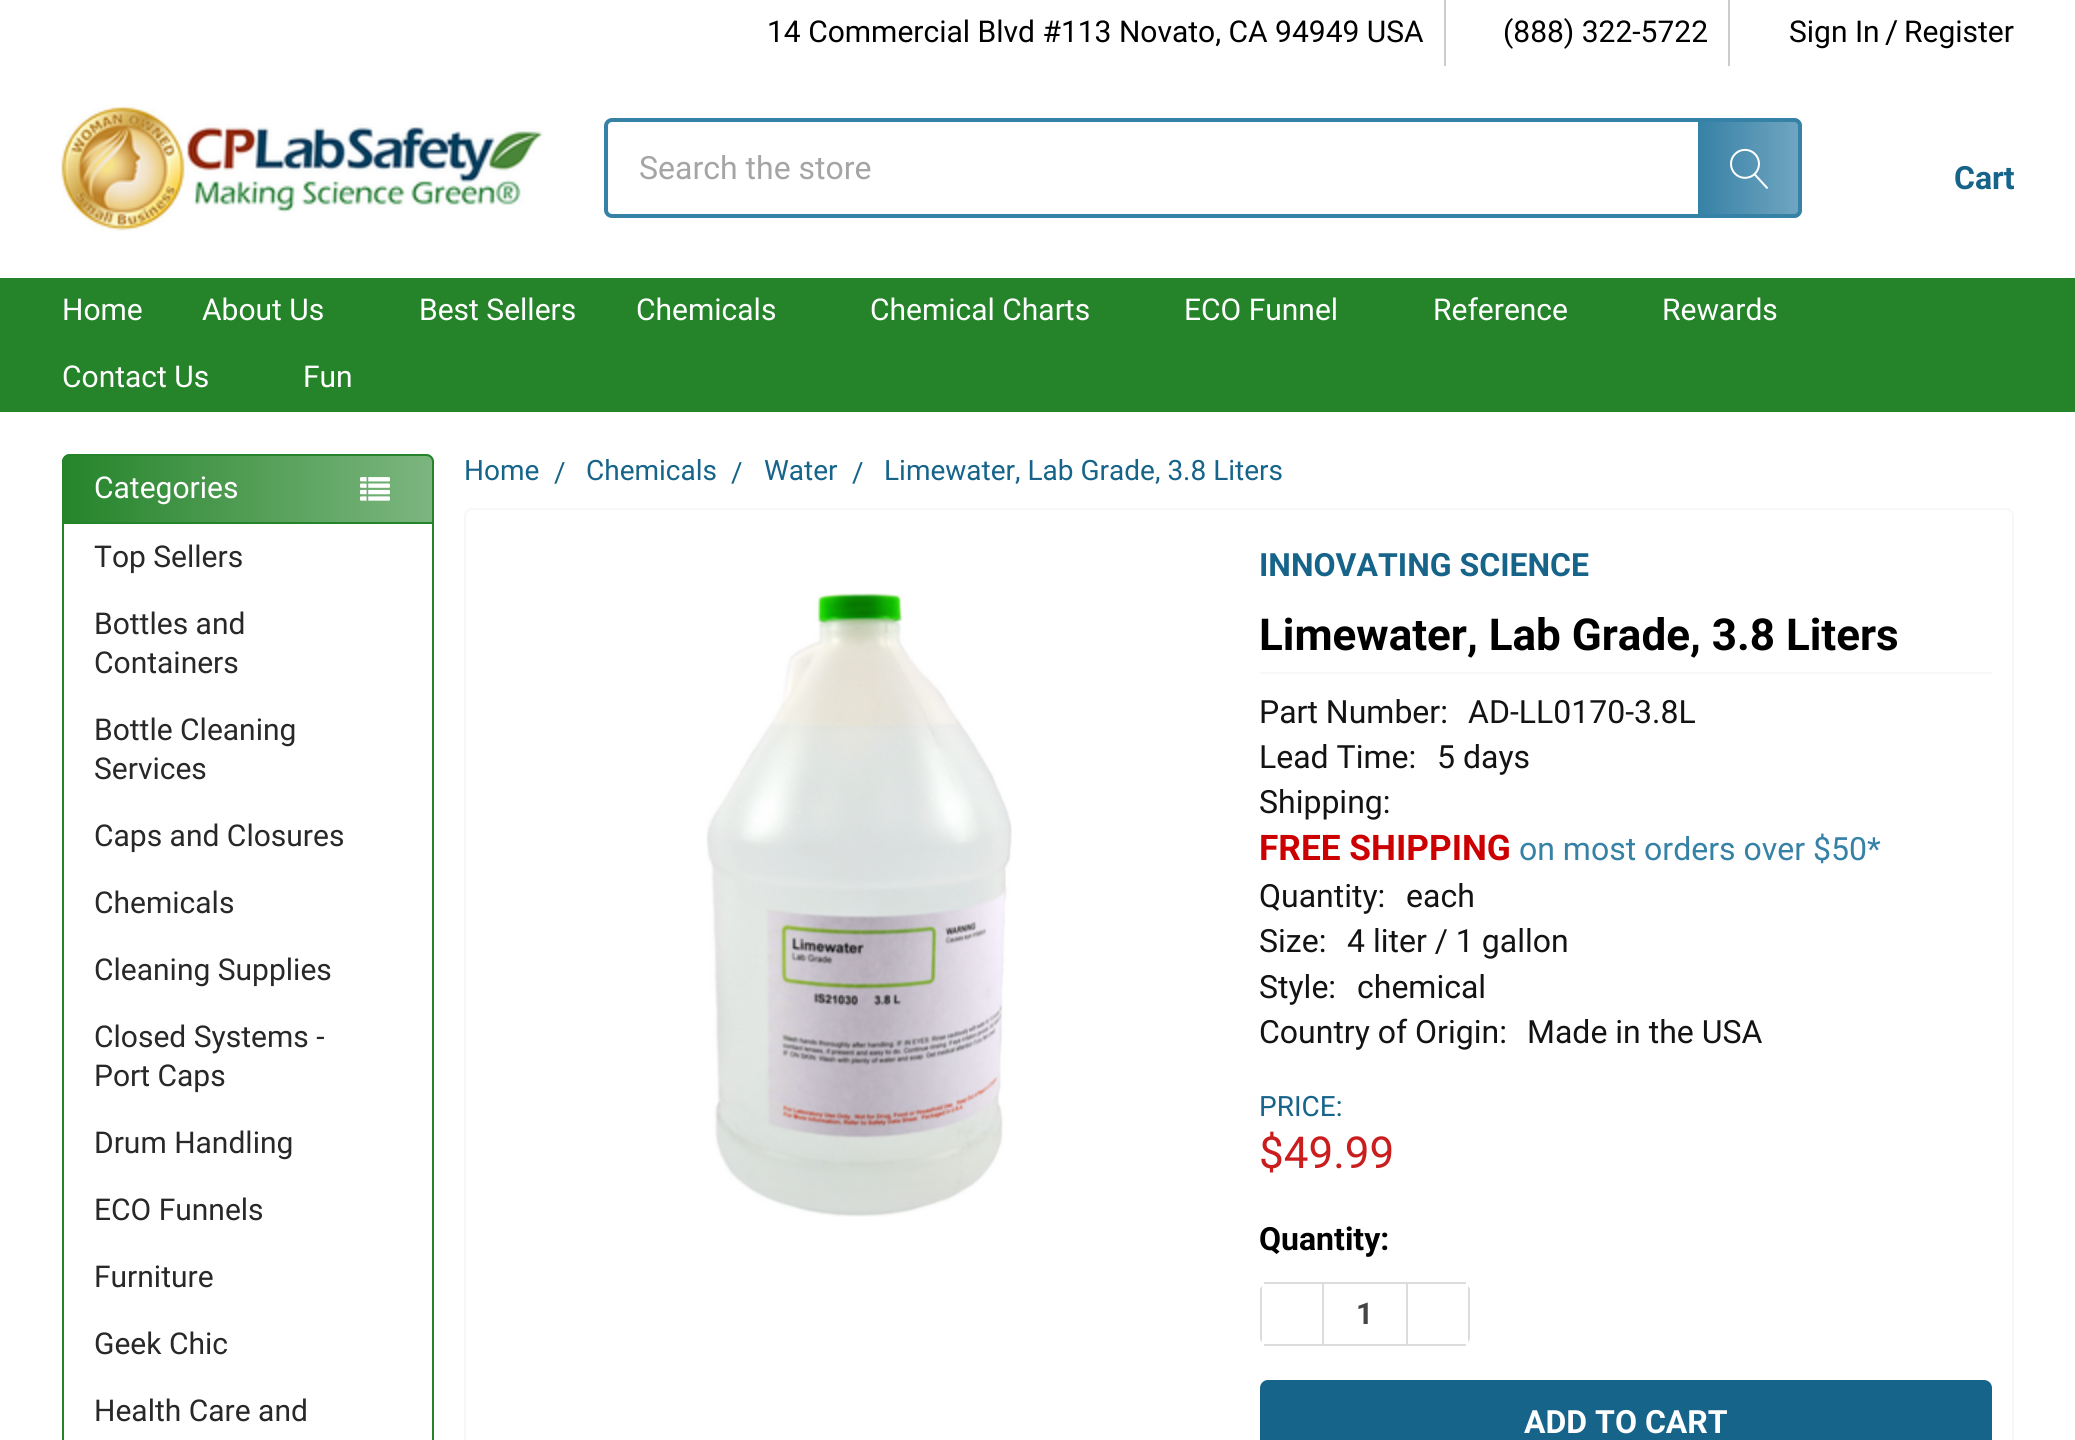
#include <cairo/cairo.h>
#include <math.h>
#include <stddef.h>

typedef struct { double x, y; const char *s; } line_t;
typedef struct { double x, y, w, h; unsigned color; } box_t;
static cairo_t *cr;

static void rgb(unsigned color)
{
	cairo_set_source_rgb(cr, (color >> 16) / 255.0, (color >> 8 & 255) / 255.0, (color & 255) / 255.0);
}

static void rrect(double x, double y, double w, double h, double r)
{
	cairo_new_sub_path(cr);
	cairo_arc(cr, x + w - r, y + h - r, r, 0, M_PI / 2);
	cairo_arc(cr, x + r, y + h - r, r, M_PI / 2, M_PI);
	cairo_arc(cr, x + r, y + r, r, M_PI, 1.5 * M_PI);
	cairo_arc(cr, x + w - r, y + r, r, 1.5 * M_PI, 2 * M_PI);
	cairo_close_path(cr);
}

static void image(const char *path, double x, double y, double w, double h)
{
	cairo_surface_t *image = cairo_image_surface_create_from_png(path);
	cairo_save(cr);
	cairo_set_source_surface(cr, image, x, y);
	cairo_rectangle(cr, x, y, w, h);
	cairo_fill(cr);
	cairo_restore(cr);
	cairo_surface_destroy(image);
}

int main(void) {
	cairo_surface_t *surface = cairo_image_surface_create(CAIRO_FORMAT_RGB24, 2075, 1440);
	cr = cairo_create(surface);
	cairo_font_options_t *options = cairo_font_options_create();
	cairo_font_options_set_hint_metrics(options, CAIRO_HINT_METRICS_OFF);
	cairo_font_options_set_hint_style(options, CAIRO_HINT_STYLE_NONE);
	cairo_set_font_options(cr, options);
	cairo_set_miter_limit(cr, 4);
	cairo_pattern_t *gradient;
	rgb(0xffffff);
	cairo_paint(cr);
	rgb(0xcccccc);
	cairo_rectangle(cr, 1444, 0, 2, 66);
	cairo_fill(cr);
	cairo_rectangle(cr, 1728, 0, 2, 66);
	cairo_fill(cr);
	image("img/1.png", 61, 104, 482, 127);
	rrect(606, 120, 1194, 96, 6);
	rgb(0x3681a6);
	cairo_set_line_width(cr, 4);
	cairo_stroke(cr);
	gradient = cairo_pattern_create_linear(1698, 168, 1802, 168);
	cairo_pattern_add_color_stop_rgba(gradient, 0, 0.212, 0.506, 0.651, 1);
	cairo_pattern_add_color_stop_rgba(gradient, 1, 0.212, 0.506, 0.651, 0.7);
	cairo_set_source(cr, gradient);
	cairo_pattern_destroy(gradient);
	cairo_new_path(cr);
	cairo_move_to(cr, 1698, 118);
	cairo_line_to(cr, 1794, 118);
	cairo_curve_to(cr, 1798.5, 118, 1802, 121.5, 1802, 126);
	cairo_line_to(cr, 1802, 210);
	cairo_curve_to(cr, 1802, 214.5, 1798.5, 218, 1794, 218);
	cairo_line_to(cr, 1698, 218);
	cairo_close_path(cr);
	cairo_fill(cr);
	image("img/2.png", 1730, 148, 38, 41);
	rgb(0x25842a);
	cairo_rectangle(cr, 0, 278, 2075, 134);
	cairo_fill(cr);
	gradient = cairo_pattern_create_linear(62, 1244, 434, 1244);
	cairo_pattern_add_color_stop_rgba(gradient, 0, 0.145, 0.518, 0.165, 1);
	cairo_pattern_add_color_stop_rgba(gradient, 1, 0.49, 0.714, 0.502, 1);
	cairo_set_source(cr, gradient);
	cairo_pattern_destroy(gradient);
	rrect(62, 454, 372, 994, 8);
	cairo_fill(cr);
	cairo_new_path(cr);
	cairo_move_to(cr, 70, 455);
	cairo_line_to(cr, 426, 455);
	cairo_curve_to(cr, 430, 455, 433, 458, 433, 462);
	cairo_line_to(cr, 433, 523);
	cairo_line_to(cr, 63, 523);
	cairo_line_to(cr, 63, 462);
	cairo_curve_to(cr, 63, 458, 66, 455, 70, 455);
	cairo_close_path(cr);
	rgb(0x25842a);
	cairo_set_line_width(cr, 2);
	cairo_stroke(cr);
	image("img/3.png", 360, 477, 30, 24);
	rgb(0xffffff);
	cairo_rectangle(cr, 64, 524, 368, 916);
	cairo_fill(cr);
	rgb(0x25842a);
	cairo_set_fill_rule(cr, CAIRO_FILL_RULE_EVEN_ODD);
	cairo_new_path(cr);
	cairo_move_to(cr, 62, 524);
	cairo_line_to(cr, 434, 524);
	cairo_line_to(cr, 434, 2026);
	cairo_curve_to(cr, 434, 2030, 430, 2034, 426, 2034);
	cairo_line_to(cr, 70, 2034);
	cairo_curve_to(cr, 66, 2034, 62, 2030, 62, 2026);
	cairo_close_path(cr);
	cairo_move_to(cr, 64, 524);
	cairo_line_to(cr, 432, 524);
	cairo_line_to(cr, 432, 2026);
	cairo_curve_to(cr, 432, 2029, 429, 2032, 426, 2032);
	cairo_line_to(cr, 70, 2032);
	cairo_curve_to(cr, 67, 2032, 64, 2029, 64, 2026);
	cairo_close_path(cr);
	cairo_fill(cr);
	rrect(465, 509, 1548, 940, 7);
	rgb(0xf7f7f7);
	cairo_stroke(cr);
	image("img/4.png", 706, 593, 306, 624);
	{
		static const box_t items[] = {
			{1260, 672, 732, 2, 0xf7f7f7},
			{1264, 1282, 202, 2, 0xdcdcdc},
			{1264, 1344, 202, 2, 0xdcdcdc},
			{1322, 1284, 2, 60, 0xdcdcdc},
		};
		for (size_t i = 0; i < sizeof items / sizeof *items; i++) {
			rgb(items[i].color);
			cairo_rectangle(cr, items[i].x, items[i].y, items[i].w, items[i].h);
			cairo_fill(cr);
		}
	}
	cairo_set_fill_rule(cr, CAIRO_FILL_RULE_WINDING);
	cairo_new_path(cr);
	cairo_move_to(cr, 1260, 1290);
	cairo_line_to(cr, 1260, 1338);
	cairo_curve_to(cr, 1260, 1340, 1261, 1341, 1262, 1342);
	cairo_line_to(cr, 1262, 1286);
	cairo_curve_to(cr, 1261, 1287, 1260, 1288, 1260, 1290);
	cairo_close_path(cr);
	cairo_fill(cr);
	cairo_new_path(cr);
	cairo_move_to(cr, 1470, 1338);
	cairo_line_to(cr, 1470, 1290);
	cairo_curve_to(cr, 1470, 1288, 1469, 1287, 1468, 1286);
	cairo_line_to(cr, 1468, 1342);
	cairo_curve_to(cr, 1469, 1341, 1470, 1340, 1470, 1338);
	cairo_close_path(cr);
	cairo_fill(cr);
	cairo_rectangle(cr, 1406, 1284, 2, 60);
	cairo_fill(cr);
	rgb(0x17648a);
	rrect(1261, 1381, 730, 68, 7);
	cairo_fill_preserve(cr);
	cairo_stroke(cr);
	cairo_select_font_face(cr, "Roboto", CAIRO_FONT_SLANT_NORMAL, CAIRO_FONT_WEIGHT_NORMAL);
	cairo_set_font_size(cr, 30);
	rgb(0x000000);
	{
		static const line_t items[] = {
			{767, 42, "14 Commercial Blvd #113 Novato, CA 94949 USA"},
			{1503, 42, "(888) 322-5722"},
			{1789, 42, "Sign In"},
		};
		for (size_t i = 0; i < sizeof items / sizeof *items; i++) {
			cairo_move_to(cr, items[i].x, items[i].y);
			cairo_show_text(cr, items[i].s);
		}
	}
	cairo_set_font_size(cr, 32);
	cairo_move_to(cr, 1885, 43);
	cairo_show_text(cr, "/");
	cairo_set_font_size(cr, 30);
	cairo_move_to(cr, 1904, 42);
	cairo_show_text(cr, "Register");
	cairo_set_font_size(cr, 32);
	rgb(0xa5a5a5);
	cairo_move_to(cr, 639, 179);
	cairo_show_text(cr, "Search the store");
	cairo_select_font_face(cr, "Roboto", CAIRO_FONT_SLANT_NORMAL, CAIRO_FONT_WEIGHT_BOLD);
	rgb(0x17648a);
	cairo_move_to(cr, 1954, 189);
	cairo_show_text(cr, "Cart");
	cairo_select_font_face(cr, "Roboto", CAIRO_FONT_SLANT_NORMAL, CAIRO_FONT_WEIGHT_NORMAL);
	cairo_set_font_size(cr, 30);
	rgb(0xffffff);
	{
		static const line_t items[] = {
			{62, 320, "Home"},
			{202, 320, "About Us"},
			{419, 320, "Best Sellers"},
			{636, 320, "Chemicals"},
			{870, 320, "Chemical Charts"},
			{1184, 320, "ECO Funnel"},
			{1433, 320, "Reference"},
			{1662, 320, "Rewards"},
			{62, 387, "Contact Us"},
			{303, 387, "Fun"},
			{94, 498, "Categories"},
		};
		for (size_t i = 0; i < sizeof items / sizeof *items; i++) {
			cairo_move_to(cr, items[i].x, items[i].y);
			cairo_show_text(cr, items[i].s);
		}
	}
	rgb(0x282828);
	{
		static const line_t items[] = {
			{94, 567, "Top Sellers"},
			{94, 634, "Bottles and"},
			{94, 673, "Containers"},
			{94, 740, "Bottle Cleaning"},
			{94, 779, "Services"},
			{94, 846, "Caps and Closures"},
			{94, 913, "Chemicals"},
			{94, 980, "Cleaning Supplies"},
			{94, 1047, "Closed Systems -"},
			{94, 1086, "Port Caps"},
			{94, 1153, "Drum Handling"},
			{94, 1220, "ECO Funnels"},
			{94, 1287, "Furniture"},
			{94, 1354, "Geek Chic"},
			{94, 1421, "Health Care and"},
		};
		for (size_t i = 0; i < sizeof items / sizeof *items; i++) {
			cairo_move_to(cr, items[i].x, items[i].y);
			cairo_show_text(cr, items[i].s);
		}
	}
	cairo_set_font_size(cr, 28);
	rgb(0x17648a);
	{
		static const line_t items[] = {
			{464, 480, "Home"},
			{554, 482, "/"},
			{586, 480, "Chemicals"},
			{731, 482, "/"},
			{764, 480, "Water"},
			{852, 482, "/"},
			{884, 480, "Limewater, Lab Grade, 3.8 Liters"},
		};
		for (size_t i = 0; i < sizeof items / sizeof *items; i++) {
			cairo_move_to(cr, items[i].x, items[i].y);
			cairo_show_text(cr, items[i].s);
		}
	}
	cairo_select_font_face(cr, "Roboto", CAIRO_FONT_SLANT_NORMAL, CAIRO_FONT_WEIGHT_BOLD);
	cairo_set_font_size(cr, 32);
	cairo_move_to(cr, 1259, 576);
	cairo_show_text(cr, "INNOVATING SCIENCE");
	cairo_set_font_size(cr, 44);
	rgb(0x000000);
	cairo_move_to(cr, 1259, 650);
	cairo_show_text(cr, "Limewater, Lab Grade, 3.8 Liters");
	cairo_select_font_face(cr, "Roboto", CAIRO_FONT_SLANT_NORMAL, CAIRO_FONT_WEIGHT_NORMAL);
	cairo_set_font_size(cr, 32);
	rgb(0x131313);
	{
		static const line_t items[] = {
			{1259, 723, "Part Number:"},
			{1468, 723, "AD-LL0170-3.8L"},
			{1259, 768, "Lead Time:"},
			{1437, 768, "5 days"},
			{1259, 813, "Shipping:"},
		};
		for (size_t i = 0; i < sizeof items / sizeof *items; i++) {
			cairo_move_to(cr, items[i].x, items[i].y);
			cairo_show_text(cr, items[i].s);
		}
	}
	cairo_select_font_face(cr, "Roboto", CAIRO_FONT_SLANT_NORMAL, CAIRO_FONT_WEIGHT_BOLD);
	cairo_set_font_size(cr, 35.25);
	rgb(0xcc0000);
	cairo_move_to(cr, 1259, 860);
	cairo_show_text(cr, "FREE SHIPPING");
	cairo_select_font_face(cr, "Roboto", CAIRO_FONT_SLANT_NORMAL, CAIRO_FONT_WEIGHT_NORMAL);
	cairo_set_font_size(cr, 32);
	rgb(0x3681a6);
	cairo_move_to(cr, 1519, 860);
	cairo_show_text(cr, "on most orders over $50*");
	rgb(0x131313);
	{
		static const line_t items[] = {
			{1259, 907, "Quantity:"},
			{1406, 907, "each"},
			{1259, 952, "Size:"},
			{1347, 952, "4 liter / 1 gallon"},
			{1259, 998, "Style:"},
			{1357, 998, "chemical"},
			{1259, 1043, "Country of Origin:"},
			{1527, 1043, "Made in the USA"},
		};
		for (size_t i = 0; i < sizeof items / sizeof *items; i++) {
			cairo_move_to(cr, items[i].x, items[i].y);
			cairo_show_text(cr, items[i].s);
		}
	}
	cairo_set_font_size(cr, 28);
	rgb(0x17648a);
	cairo_move_to(cr, 1259, 1116);
	cairo_show_text(cr, "PRICE:");
	cairo_set_font_size(cr, 44);
	rgb(0xca1d1d);
	cairo_move_to(cr, 1259, 1168);
	cairo_show_text(cr, "$49.99");
	cairo_select_font_face(cr, "Roboto", CAIRO_FONT_SLANT_NORMAL, CAIRO_FONT_WEIGHT_BOLD);
	cairo_set_font_size(cr, 32);
	rgb(0x000000);
	cairo_move_to(cr, 1259, 1250);
	cairo_show_text(cr, "Quantity:");
	cairo_set_font_size(cr, 30);
	rgb(0x454545);
	cairo_move_to(cr, 1356, 1324);
	cairo_show_text(cr, "1");
	cairo_set_font_size(cr, 32);
	rgb(0xffffff);
	cairo_move_to(cr, 1524, 1433);
	cairo_show_text(cr, "ADD TO CART");
	cairo_surface_write_to_png(surface, "page.png");
	cairo_font_options_destroy(options);
	cairo_destroy(cr);
	cairo_surface_destroy(surface);
	return 0;
}
